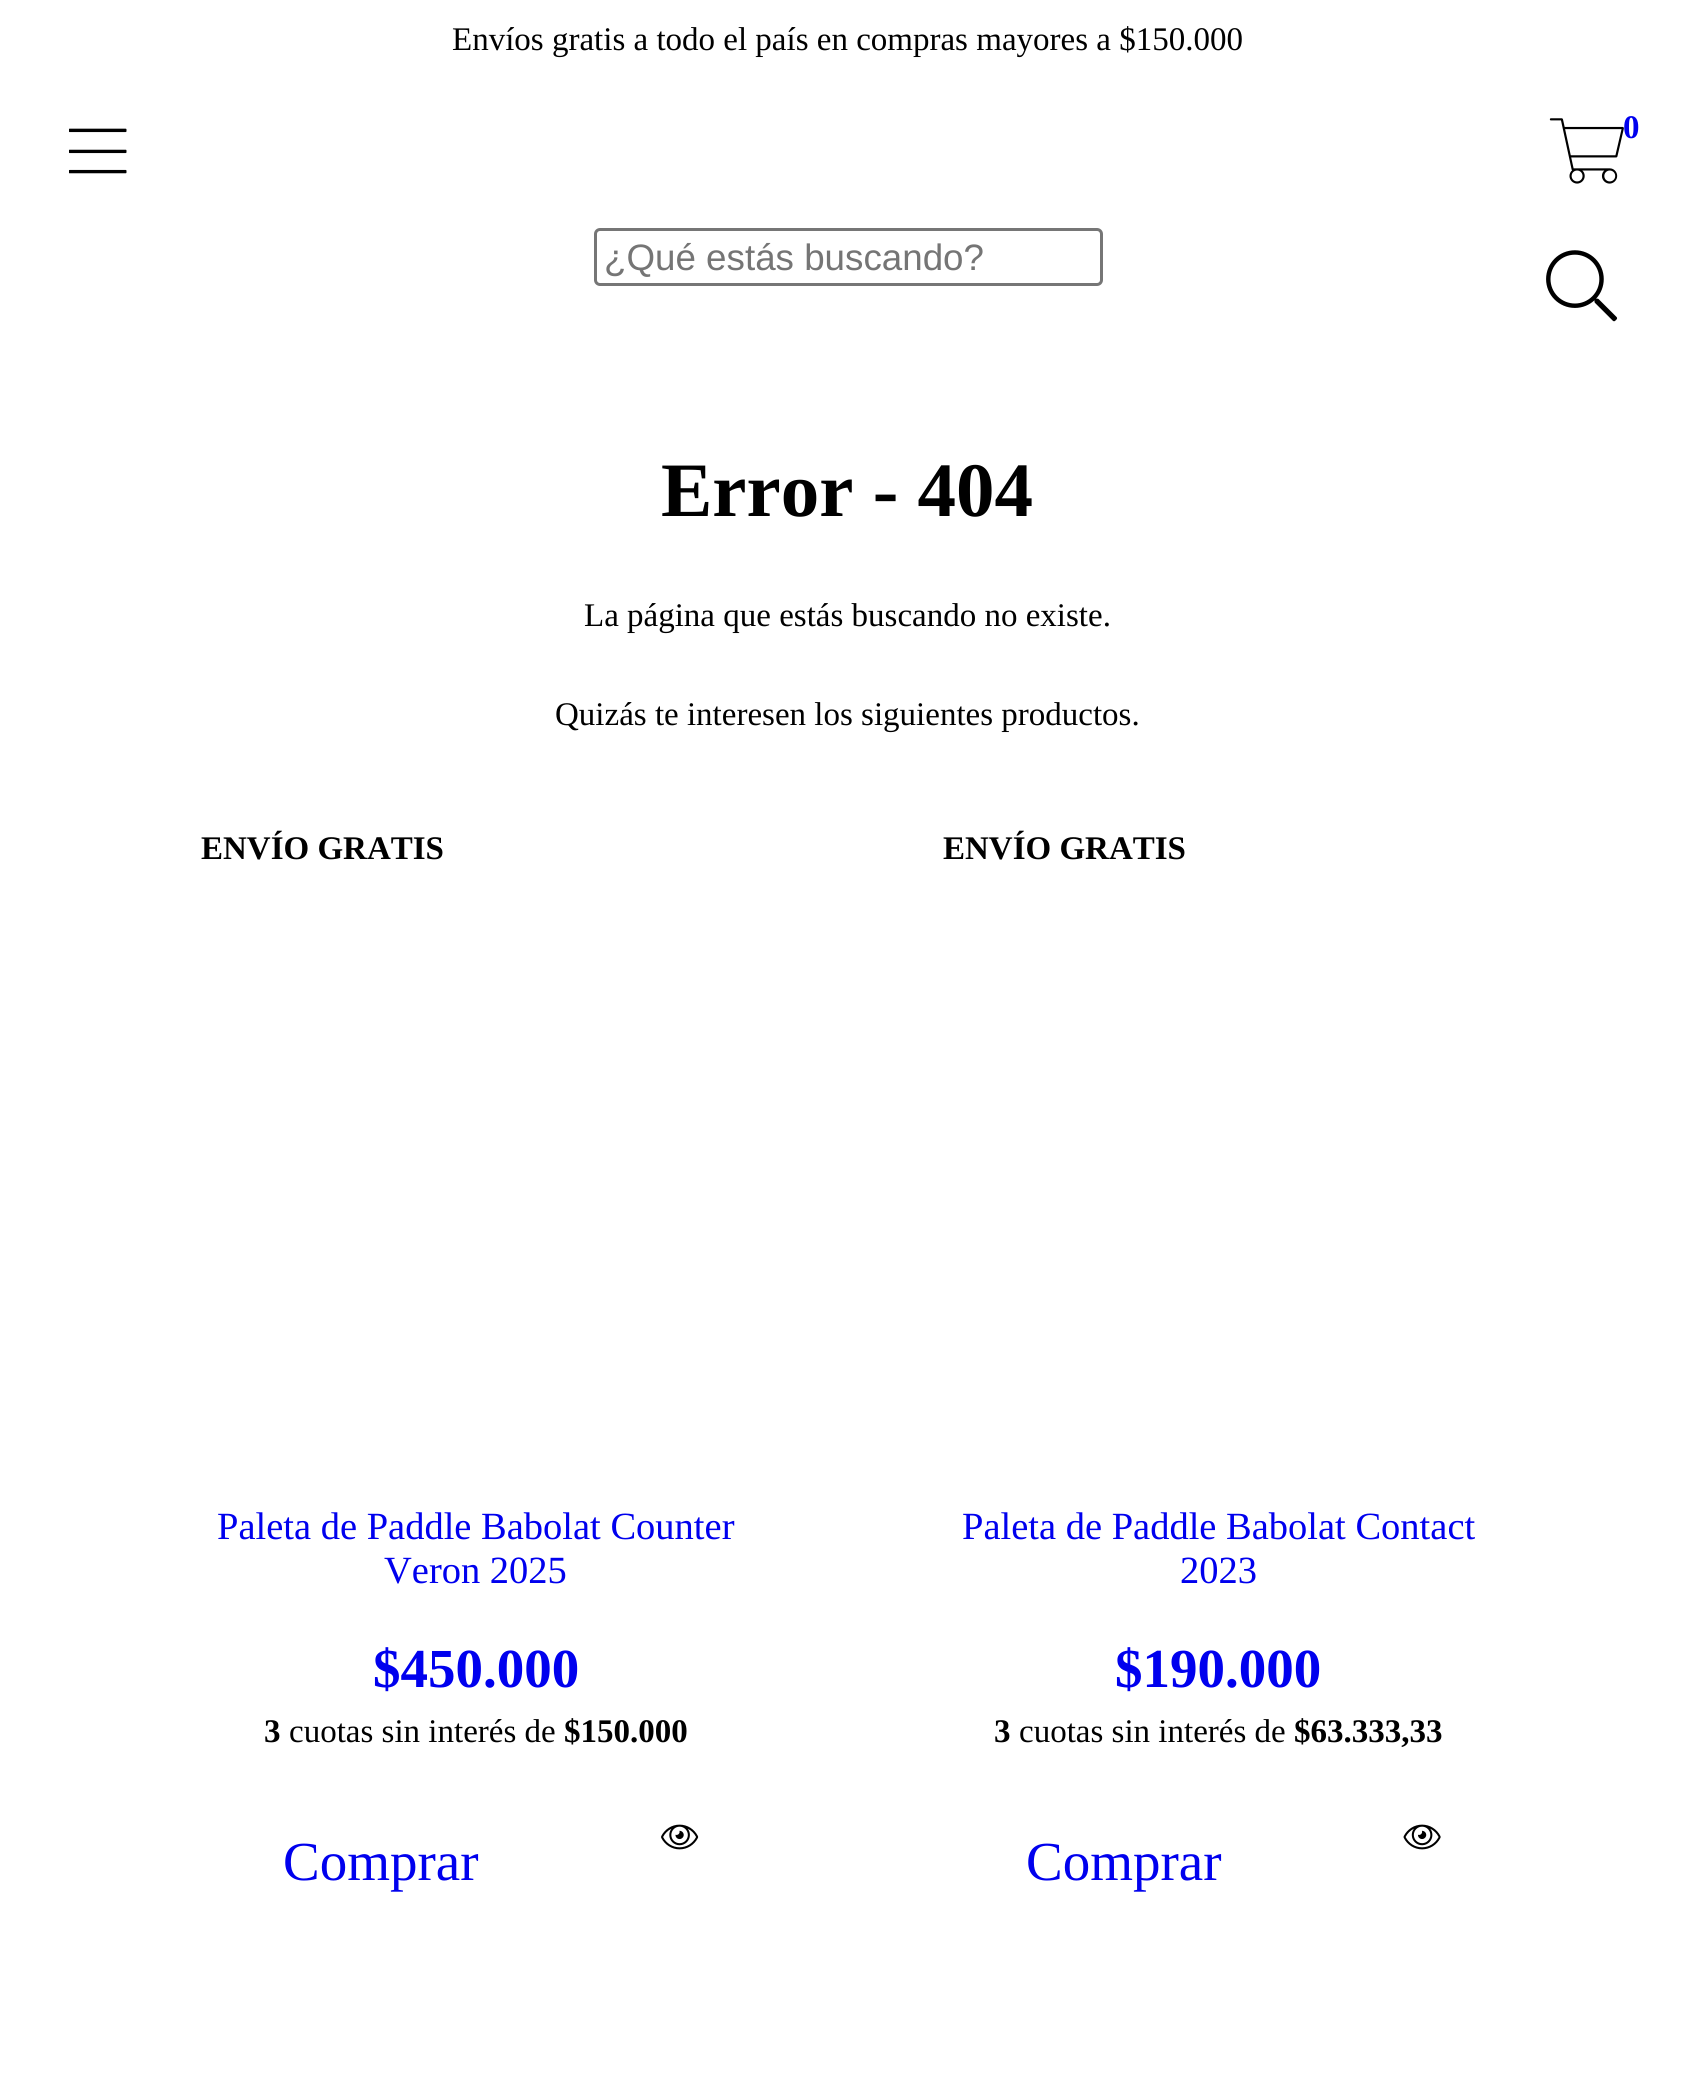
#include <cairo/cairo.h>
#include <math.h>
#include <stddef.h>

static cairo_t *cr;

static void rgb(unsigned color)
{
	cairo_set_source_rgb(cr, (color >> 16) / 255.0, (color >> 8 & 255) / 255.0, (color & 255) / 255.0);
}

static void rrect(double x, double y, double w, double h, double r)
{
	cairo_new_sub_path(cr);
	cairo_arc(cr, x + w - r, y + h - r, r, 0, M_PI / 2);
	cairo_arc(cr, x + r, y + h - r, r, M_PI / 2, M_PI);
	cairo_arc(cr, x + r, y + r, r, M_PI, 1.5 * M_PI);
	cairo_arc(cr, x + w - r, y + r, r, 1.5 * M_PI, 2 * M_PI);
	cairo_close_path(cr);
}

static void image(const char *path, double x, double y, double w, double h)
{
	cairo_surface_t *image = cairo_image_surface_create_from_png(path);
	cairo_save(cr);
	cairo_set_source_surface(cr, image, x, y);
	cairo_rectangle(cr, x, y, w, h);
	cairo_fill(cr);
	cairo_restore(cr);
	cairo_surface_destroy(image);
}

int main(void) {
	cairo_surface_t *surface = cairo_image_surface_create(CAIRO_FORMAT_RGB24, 1694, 2084);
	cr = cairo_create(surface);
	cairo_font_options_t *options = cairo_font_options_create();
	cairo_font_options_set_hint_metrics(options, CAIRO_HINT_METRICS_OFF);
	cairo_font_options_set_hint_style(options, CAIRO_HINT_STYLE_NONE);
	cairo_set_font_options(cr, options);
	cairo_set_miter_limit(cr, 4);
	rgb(0xffffff);
	cairo_paint(cr);
	image("img/1.png", 69, 128, 58, 46);
	image("img/2.png", 1549, 118, 75, 66);
	rrect(595.5, 229.5, 506, 55, 4.5);
	rgb(0x767676);
	cairo_set_line_width(cr, 3);
	cairo_stroke(cr);
	image("img/3.png", 1546, 250, 72, 72);
	image("img/4.png", 661, 1824, 38, 26);
	image("img/5.png", 1403, 1824, 38, 26);
	cairo_select_font_face(cr, "Liberation Serif", CAIRO_FONT_SLANT_NORMAL, CAIRO_FONT_WEIGHT_NORMAL);
	cairo_set_font_size(cr, 33);
	rgb(0x000000);
	cairo_move_to(cr, 452, 50);
	cairo_show_text(cr, "Envíos gratis a todo el país en compras mayores a $150.000");
	cairo_select_font_face(cr, "Liberation Serif", CAIRO_FONT_SLANT_NORMAL, CAIRO_FONT_WEIGHT_BOLD);
	rgb(0x0000ee);
	cairo_move_to(cr, 1623, 138);
	cairo_show_text(cr, "0");
	cairo_select_font_face(cr, "Liberation Sans", CAIRO_FONT_SLANT_NORMAL, CAIRO_FONT_WEIGHT_NORMAL);
	cairo_set_font_size(cr, 36.75);
	rgb(0x757575);
	cairo_move_to(cr, 604, 270);
	cairo_show_text(cr, "¿Qué estás buscando?");
	cairo_select_font_face(cr, "Liberation Serif", CAIRO_FONT_SLANT_NORMAL, CAIRO_FONT_WEIGHT_BOLD);
	cairo_set_font_size(cr, 77);
	rgb(0x000000);
	cairo_move_to(cr, 661, 516);
	cairo_show_text(cr, "Error - 404");
	cairo_select_font_face(cr, "Liberation Serif", CAIRO_FONT_SLANT_NORMAL, CAIRO_FONT_WEIGHT_NORMAL);
	cairo_set_font_size(cr, 33);
	cairo_move_to(cr, 584, 626);
	cairo_show_text(cr, "La página que estás buscando no existe.");
	cairo_move_to(cr, 555, 725);
	cairo_show_text(cr, "Quizás te interesen los siguientes productos.");
	cairo_select_font_face(cr, "Liberation Serif", CAIRO_FONT_SLANT_NORMAL, CAIRO_FONT_WEIGHT_BOLD);
	cairo_move_to(cr, 201, 859);
	cairo_show_text(cr, "ENVÍO GRATIS");
	cairo_select_font_face(cr, "Liberation Serif", CAIRO_FONT_SLANT_NORMAL, CAIRO_FONT_WEIGHT_NORMAL);
	cairo_set_font_size(cr, 38.5);
	rgb(0x0000ee);
	cairo_move_to(cr, 217, 1539);
	cairo_show_text(cr, "Paleta de Paddle Babolat Counter");
	cairo_move_to(cr, 384, 1583);
	cairo_show_text(cr, "Veron 2025");
	cairo_select_font_face(cr, "Liberation Serif", CAIRO_FONT_SLANT_NORMAL, CAIRO_FONT_WEIGHT_BOLD);
	cairo_set_font_size(cr, 55);
	cairo_move_to(cr, 373, 1687);
	cairo_show_text(cr, "$450.000");
	cairo_set_font_size(cr, 33);
	rgb(0x000000);
	cairo_move_to(cr, 264, 1742);
	cairo_show_text(cr, "3");
	cairo_select_font_face(cr, "Liberation Serif", CAIRO_FONT_SLANT_NORMAL, CAIRO_FONT_WEIGHT_NORMAL);
	cairo_move_to(cr, 289, 1742);
	cairo_show_text(cr, "cuotas sin interés de");
	cairo_select_font_face(cr, "Liberation Serif", CAIRO_FONT_SLANT_NORMAL, CAIRO_FONT_WEIGHT_BOLD);
	cairo_move_to(cr, 564, 1742);
	cairo_show_text(cr, "$150.000");
	cairo_select_font_face(cr, "Liberation Serif", CAIRO_FONT_SLANT_NORMAL, CAIRO_FONT_WEIGHT_NORMAL);
	cairo_set_font_size(cr, 55);
	rgb(0x0000ee);
	cairo_move_to(cr, 283, 1880);
	cairo_show_text(cr, "Comprar");
	cairo_select_font_face(cr, "Liberation Serif", CAIRO_FONT_SLANT_NORMAL, CAIRO_FONT_WEIGHT_BOLD);
	cairo_set_font_size(cr, 33);
	rgb(0x000000);
	cairo_move_to(cr, 943, 859);
	cairo_show_text(cr, "ENVÍO GRATIS");
	cairo_select_font_face(cr, "Liberation Serif", CAIRO_FONT_SLANT_NORMAL, CAIRO_FONT_WEIGHT_NORMAL);
	cairo_set_font_size(cr, 38.5);
	rgb(0x0000ee);
	cairo_move_to(cr, 962, 1539);
	cairo_show_text(cr, "Paleta de Paddle Babolat Contact");
	cairo_move_to(cr, 1180, 1583);
	cairo_show_text(cr, "2023");
	cairo_select_font_face(cr, "Liberation Serif", CAIRO_FONT_SLANT_NORMAL, CAIRO_FONT_WEIGHT_BOLD);
	cairo_set_font_size(cr, 55);
	cairo_move_to(cr, 1115, 1687);
	cairo_show_text(cr, "$190.000");
	cairo_set_font_size(cr, 33);
	rgb(0x000000);
	cairo_move_to(cr, 994, 1742);
	cairo_show_text(cr, "3");
	cairo_select_font_face(cr, "Liberation Serif", CAIRO_FONT_SLANT_NORMAL, CAIRO_FONT_WEIGHT_NORMAL);
	cairo_move_to(cr, 1019, 1742);
	cairo_show_text(cr, "cuotas sin interés de");
	cairo_select_font_face(cr, "Liberation Serif", CAIRO_FONT_SLANT_NORMAL, CAIRO_FONT_WEIGHT_BOLD);
	cairo_move_to(cr, 1294, 1742);
	cairo_show_text(cr, "$63.333,33");
	cairo_select_font_face(cr, "Liberation Serif", CAIRO_FONT_SLANT_NORMAL, CAIRO_FONT_WEIGHT_NORMAL);
	cairo_set_font_size(cr, 55);
	rgb(0x0000ee);
	cairo_move_to(cr, 1026, 1880);
	cairo_show_text(cr, "Comprar");
	cairo_surface_write_to_png(surface, "page.png");
	cairo_font_options_destroy(options);
	cairo_destroy(cr);
	cairo_surface_destroy(surface);
	return 0;
}
